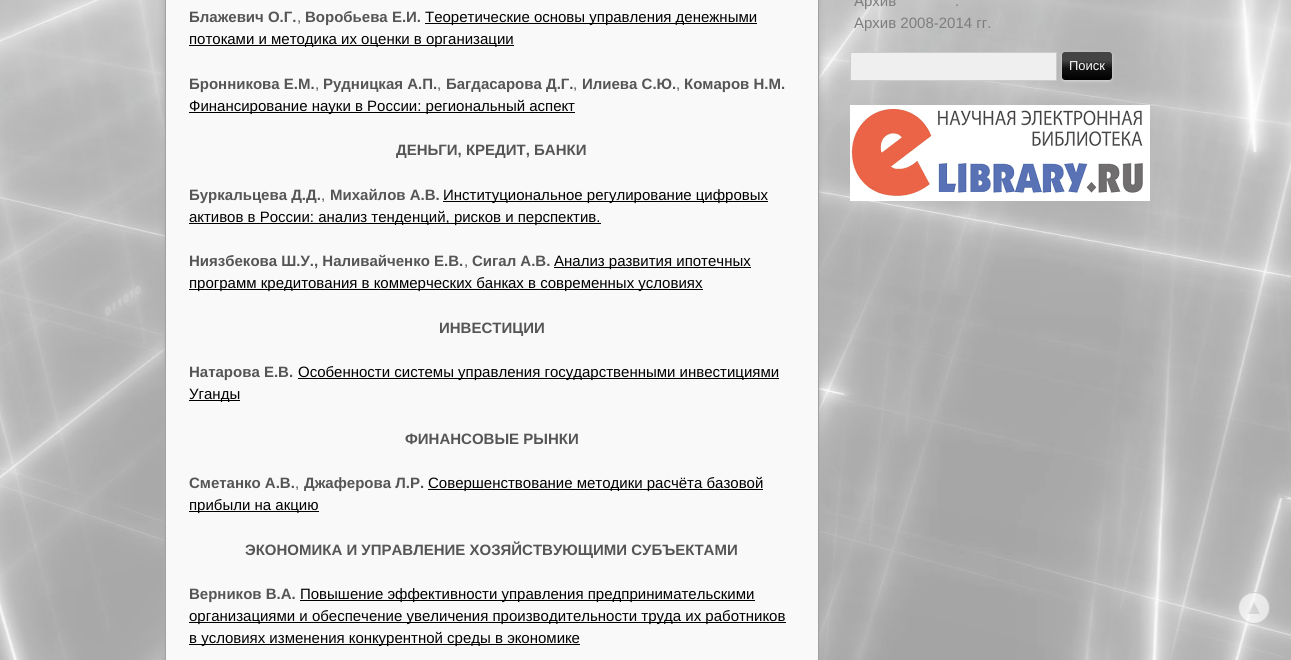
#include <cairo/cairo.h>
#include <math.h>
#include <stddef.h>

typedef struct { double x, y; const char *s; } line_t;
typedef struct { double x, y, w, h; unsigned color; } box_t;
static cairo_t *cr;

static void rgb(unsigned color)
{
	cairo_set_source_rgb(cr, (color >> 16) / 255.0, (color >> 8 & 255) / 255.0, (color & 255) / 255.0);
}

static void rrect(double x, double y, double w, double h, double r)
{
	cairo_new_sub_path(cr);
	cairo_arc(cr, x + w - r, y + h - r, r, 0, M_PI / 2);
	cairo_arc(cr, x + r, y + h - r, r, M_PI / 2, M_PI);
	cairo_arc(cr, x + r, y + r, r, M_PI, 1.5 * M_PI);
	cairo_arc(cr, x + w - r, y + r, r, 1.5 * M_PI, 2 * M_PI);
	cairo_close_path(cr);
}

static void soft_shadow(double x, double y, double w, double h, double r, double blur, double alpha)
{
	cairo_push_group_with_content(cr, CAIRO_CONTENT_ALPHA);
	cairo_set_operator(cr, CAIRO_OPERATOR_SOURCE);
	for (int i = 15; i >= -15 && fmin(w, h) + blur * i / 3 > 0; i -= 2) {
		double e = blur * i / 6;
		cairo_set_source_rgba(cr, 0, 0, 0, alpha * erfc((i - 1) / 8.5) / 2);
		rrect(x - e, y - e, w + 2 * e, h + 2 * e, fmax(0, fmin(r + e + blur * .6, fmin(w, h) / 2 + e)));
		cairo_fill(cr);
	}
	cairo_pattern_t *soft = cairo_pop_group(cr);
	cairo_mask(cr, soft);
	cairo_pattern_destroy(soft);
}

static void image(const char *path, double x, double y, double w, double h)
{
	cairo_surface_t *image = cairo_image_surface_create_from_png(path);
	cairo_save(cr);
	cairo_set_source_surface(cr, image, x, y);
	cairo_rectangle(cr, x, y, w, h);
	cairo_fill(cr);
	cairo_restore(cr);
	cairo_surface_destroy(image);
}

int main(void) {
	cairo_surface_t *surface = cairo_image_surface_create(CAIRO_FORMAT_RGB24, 1291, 660);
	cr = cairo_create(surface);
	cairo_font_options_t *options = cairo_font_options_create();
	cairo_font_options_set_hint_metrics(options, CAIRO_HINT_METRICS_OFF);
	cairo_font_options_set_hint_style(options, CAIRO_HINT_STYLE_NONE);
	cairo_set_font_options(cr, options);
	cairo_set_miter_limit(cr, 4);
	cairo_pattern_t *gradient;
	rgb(0xffffff);
	cairo_paint(cr);
	image("img/1.png", 0, 0, 1291, 660);
	rgb(0xacabab);
	soft_shadow(165, -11, 654, 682, 0, 3.5, 1);
	rgb(0xf9f9f9);
	cairo_rectangle(cr, 165.5, -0.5, 653, 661);
	cairo_fill_preserve(cr);
	rgb(0xa2a1a1);
	cairo_set_line_width(cr, 1);
	cairo_stroke(cr);
	{
		static const box_t items[] = {
			{425, 23, 332, 1, 0x000000},
			{189, 45, 325, 1, 0x000000},
			{189, 112, 386, 1, 0x000000},
			{443, 201, 325, 1, 0x000000},
			{189, 223, 412, 1, 0x000000},
			{554, 267, 197, 1, 0x000000},
			{189, 289, 514, 1, 0x000000},
			{298, 378, 481, 1, 0x000000},
			{189, 400, 51, 1, 0x000000},
			{428, 489, 335, 1, 0x000000},
			{189, 511, 130, 1, 0x000000},
			{300, 600, 455, 1, 0x000000},
			{189, 622, 597, 1, 0x000000},
			{189, 644, 391, 1, 0x000000},
		};
		for (size_t i = 0; i < sizeof items / sizeof *items; i++) {
			rgb(items[i].color);
			cairo_rectangle(cr, items[i].x, items[i].y, items[i].w, items[i].h);
			cairo_fill(cr);
		}
	}
	rgb(0xf0efef);
	cairo_rectangle(cr, 850.5, 52.5, 206, 28);
	cairo_fill_preserve(cr);
	rgb(0xcccccc);
	cairo_stroke(cr);
	rgb(0xffffff);
	soft_shadow(1062, 53, 50, 28, 3, 1.5, 0.5);
	gradient = cairo_pattern_create_linear(1062, 52, 1062, 80);
	cairo_pattern_add_color_stop_rgba(gradient, 0, 1, 1, 1, 1);
	cairo_pattern_add_color_stop_rgba(gradient, 0, 0.267, 0.267, 0.267, 1);
	cairo_pattern_add_color_stop_rgba(gradient, 0.3, 0.267, 0.267, 0.267, 1);
	cairo_pattern_add_color_stop_rgba(gradient, 0.59, 0.067, 0.067, 0.067, 1);
	cairo_pattern_add_color_stop_rgba(gradient, 1, 0, 0, 0, 1);
	cairo_set_source(cr, gradient);
	cairo_pattern_destroy(gradient);
	rrect(1062, 52, 50, 28, 3);
	cairo_fill(cr);
	image("img/2.png", 850, 105, 300, 96);
	image("img/3.png", 1238, 592, 32, 32);
	cairo_select_font_face(cr, "Liberation Sans", CAIRO_FONT_SLANT_NORMAL, CAIRO_FONT_WEIGHT_BOLD);
	cairo_set_font_size(cr, 15);
	rgb(0x555555);
	cairo_move_to(cr, 189, 22);
	cairo_show_text(cr, "Блажевич О.Г.");
	cairo_select_font_face(cr, "Liberation Sans", CAIRO_FONT_SLANT_NORMAL, CAIRO_FONT_WEIGHT_NORMAL);
	cairo_move_to(cr, 297, 22);
	cairo_show_text(cr, ",");
	cairo_select_font_face(cr, "Liberation Sans", CAIRO_FONT_SLANT_NORMAL, CAIRO_FONT_WEIGHT_BOLD);
	cairo_move_to(cr, 305, 22);
	cairo_show_text(cr, "Воробьева Е.И.");
	cairo_select_font_face(cr, "Liberation Sans", CAIRO_FONT_SLANT_NORMAL, CAIRO_FONT_WEIGHT_NORMAL);
	rgb(0x000000);
	cairo_move_to(cr, 425, 22);
	cairo_show_text(cr, "Теоретические основы управления денежными");
	cairo_move_to(cr, 189, 44);
	cairo_show_text(cr, "потоками и методика их оценки в организации");
	cairo_select_font_face(cr, "Liberation Sans", CAIRO_FONT_SLANT_NORMAL, CAIRO_FONT_WEIGHT_BOLD);
	rgb(0x555555);
	cairo_move_to(cr, 189, 89);
	cairo_show_text(cr, "Бронникова Е.М.");
	cairo_select_font_face(cr, "Liberation Sans", CAIRO_FONT_SLANT_NORMAL, CAIRO_FONT_WEIGHT_NORMAL);
	cairo_move_to(cr, 315, 89);
	cairo_show_text(cr, ",");
	cairo_select_font_face(cr, "Liberation Sans", CAIRO_FONT_SLANT_NORMAL, CAIRO_FONT_WEIGHT_BOLD);
	cairo_move_to(cr, 323, 89);
	cairo_show_text(cr, "Рудницкая А.П.");
	cairo_select_font_face(cr, "Liberation Sans", CAIRO_FONT_SLANT_NORMAL, CAIRO_FONT_WEIGHT_NORMAL);
	cairo_move_to(cr, 437, 89);
	cairo_show_text(cr, ",");
	cairo_select_font_face(cr, "Liberation Sans", CAIRO_FONT_SLANT_NORMAL, CAIRO_FONT_WEIGHT_BOLD);
	cairo_move_to(cr, 446, 89);
	cairo_show_text(cr, "Багдасарова Д.Г.");
	cairo_select_font_face(cr, "Liberation Sans", CAIRO_FONT_SLANT_NORMAL, CAIRO_FONT_WEIGHT_NORMAL);
	cairo_move_to(cr, 573, 89);
	cairo_show_text(cr, ",");
	cairo_select_font_face(cr, "Liberation Sans", CAIRO_FONT_SLANT_NORMAL, CAIRO_FONT_WEIGHT_BOLD);
	cairo_move_to(cr, 582, 89);
	cairo_show_text(cr, "Илиева С.Ю.");
	cairo_select_font_face(cr, "Liberation Sans", CAIRO_FONT_SLANT_NORMAL, CAIRO_FONT_WEIGHT_NORMAL);
	cairo_move_to(cr, 676, 89);
	cairo_show_text(cr, ",");
	cairo_select_font_face(cr, "Liberation Sans", CAIRO_FONT_SLANT_NORMAL, CAIRO_FONT_WEIGHT_BOLD);
	cairo_move_to(cr, 684, 89);
	cairo_show_text(cr, "Комаров Н.М.");
	cairo_select_font_face(cr, "Liberation Sans", CAIRO_FONT_SLANT_NORMAL, CAIRO_FONT_WEIGHT_NORMAL);
	rgb(0x000000);
	cairo_move_to(cr, 189, 111);
	cairo_show_text(cr, "Финансирование науки в России: региональный аспект");
	cairo_select_font_face(cr, "Liberation Sans", CAIRO_FONT_SLANT_NORMAL, CAIRO_FONT_WEIGHT_BOLD);
	rgb(0x555555);
	cairo_move_to(cr, 396, 155);
	cairo_show_text(cr, "ДЕНЬГИ, КРЕДИТ, БАНКИ");
	cairo_move_to(cr, 189, 200);
	cairo_show_text(cr, "Буркальцева Д.Д.");
	cairo_select_font_face(cr, "Liberation Sans", CAIRO_FONT_SLANT_NORMAL, CAIRO_FONT_WEIGHT_NORMAL);
	cairo_move_to(cr, 321, 200);
	cairo_show_text(cr, ",");
	cairo_select_font_face(cr, "Liberation Sans", CAIRO_FONT_SLANT_NORMAL, CAIRO_FONT_WEIGHT_BOLD);
	cairo_move_to(cr, 330, 200);
	cairo_show_text(cr, "Михайлов А.В.");
	cairo_select_font_face(cr, "Liberation Sans", CAIRO_FONT_SLANT_NORMAL, CAIRO_FONT_WEIGHT_NORMAL);
	rgb(0x000000);
	cairo_move_to(cr, 443, 200);
	cairo_show_text(cr, "Институциональное регулирование цифровых");
	cairo_move_to(cr, 189, 222);
	cairo_show_text(cr, "активов в России: анализ тенденций, рисков и перспектив.");
	cairo_select_font_face(cr, "Liberation Sans", CAIRO_FONT_SLANT_NORMAL, CAIRO_FONT_WEIGHT_BOLD);
	rgb(0x555555);
	cairo_move_to(cr, 189, 266);
	cairo_show_text(cr, "Ниязбекова Ш.У., Наливайченко Е.В.");
	cairo_select_font_face(cr, "Liberation Sans", CAIRO_FONT_SLANT_NORMAL, CAIRO_FONT_WEIGHT_NORMAL);
	cairo_move_to(cr, 464, 266);
	cairo_show_text(cr, ",");
	cairo_select_font_face(cr, "Liberation Sans", CAIRO_FONT_SLANT_NORMAL, CAIRO_FONT_WEIGHT_BOLD);
	cairo_move_to(cr, 472, 266);
	cairo_show_text(cr, "Сигал А.В.");
	cairo_select_font_face(cr, "Liberation Sans", CAIRO_FONT_SLANT_NORMAL, CAIRO_FONT_WEIGHT_NORMAL);
	rgb(0x000000);
	cairo_move_to(cr, 554, 266);
	cairo_show_text(cr, "Анализ развития ипотечных");
	cairo_move_to(cr, 189, 288);
	cairo_show_text(cr, "программ кредитования в коммерческих банках в современных условиях");
	cairo_select_font_face(cr, "Liberation Sans", CAIRO_FONT_SLANT_NORMAL, CAIRO_FONT_WEIGHT_BOLD);
	rgb(0x555555);
	cairo_move_to(cr, 439, 333);
	cairo_show_text(cr, "ИНВЕСТИЦИИ");
	cairo_move_to(cr, 189, 377);
	cairo_show_text(cr, "Натарова Е.В.");
	cairo_select_font_face(cr, "Liberation Sans", CAIRO_FONT_SLANT_NORMAL, CAIRO_FONT_WEIGHT_NORMAL);
	rgb(0x000000);
	cairo_move_to(cr, 298, 377);
	cairo_show_text(cr, "Особенности системы управления государственными инвестициями");
	cairo_move_to(cr, 189, 399);
	cairo_show_text(cr, "Уганды");
	cairo_select_font_face(cr, "Liberation Sans", CAIRO_FONT_SLANT_NORMAL, CAIRO_FONT_WEIGHT_BOLD);
	rgb(0x555555);
	cairo_move_to(cr, 405, 444);
	cairo_show_text(cr, "ФИНАНСОВЫЕ РЫНКИ");
	cairo_move_to(cr, 189, 488);
	cairo_show_text(cr, "Сметанко А.В.");
	cairo_select_font_face(cr, "Liberation Sans", CAIRO_FONT_SLANT_NORMAL, CAIRO_FONT_WEIGHT_NORMAL);
	cairo_move_to(cr, 295, 488);
	cairo_show_text(cr, ",");
	cairo_select_font_face(cr, "Liberation Sans", CAIRO_FONT_SLANT_NORMAL, CAIRO_FONT_WEIGHT_BOLD);
	cairo_move_to(cr, 304, 488);
	cairo_show_text(cr, "Джаферова Л.Р.");
	cairo_select_font_face(cr, "Liberation Sans", CAIRO_FONT_SLANT_NORMAL, CAIRO_FONT_WEIGHT_NORMAL);
	rgb(0x000000);
	cairo_move_to(cr, 428, 488);
	cairo_show_text(cr, "Совершенствование методики расчёта базовой");
	cairo_move_to(cr, 189, 510);
	cairo_show_text(cr, "прибыли на акцию");
	cairo_select_font_face(cr, "Liberation Sans", CAIRO_FONT_SLANT_NORMAL, CAIRO_FONT_WEIGHT_BOLD);
	rgb(0x555555);
	cairo_move_to(cr, 245, 555);
	cairo_show_text(cr, "ЭКОНОМИКА И УПРАВЛЕНИЕ ХОЗЯЙСТВУЮЩИМИ СУБЪЕКТАМИ");
	cairo_move_to(cr, 189, 599);
	cairo_show_text(cr, "Верников В.А.");
	cairo_select_font_face(cr, "Liberation Sans", CAIRO_FONT_SLANT_NORMAL, CAIRO_FONT_WEIGHT_NORMAL);
	rgb(0x000000);
	{
		static const line_t items[] = {
			{300, 599, "Повышение эффективности управления предпринимательскими"},
			{189, 621, "организациями и обеспечение увеличения производительности труда их работников"},
			{189, 643, "в условиях изменения конкурентной среды в экономике"},
		};
		for (size_t i = 0; i < sizeof items / sizeof *items; i++) {
			cairo_move_to(cr, items[i].x, items[i].y);
			cairo_show_text(cr, items[i].s);
		}
	}
	rgb(0x7d7d7d);
	{
		static const line_t items[] = {
			{854, 6, "Архив"},
			{955, 6, "."},
			{854, 28, "Архив 2008-2014 гг."},
		};
		for (size_t i = 0; i < sizeof items / sizeof *items; i++) {
			cairo_move_to(cr, items[i].x, items[i].y);
			cairo_show_text(cr, items[i].s);
		}
	}
	cairo_set_font_size(cr, 13);
	rgb(0xf8f8f8);
	cairo_move_to(cr, 1069, 70);
	cairo_show_text(cr, "Поиск");
	cairo_surface_write_to_png(surface, "page.png");
	cairo_font_options_destroy(options);
	cairo_destroy(cr);
	cairo_surface_destroy(surface);
	return 0;
}
